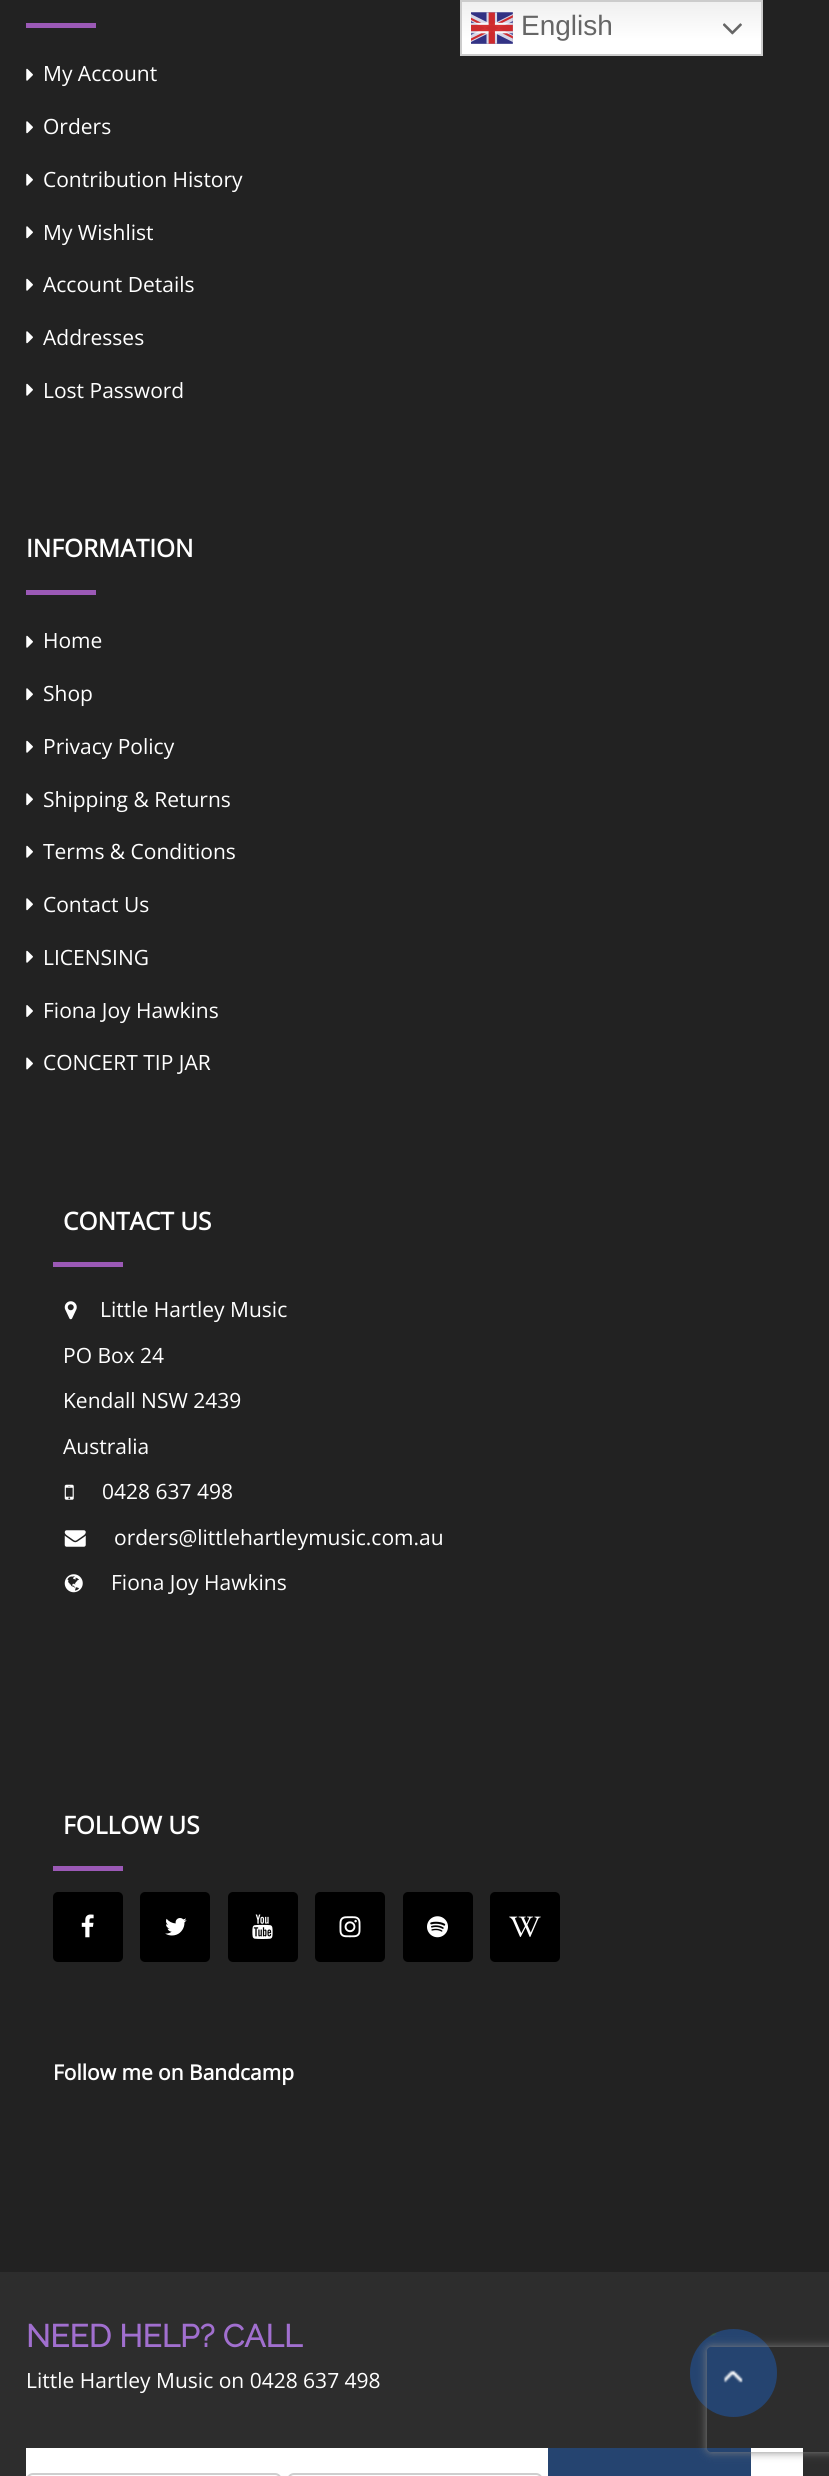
#include <cairo/cairo.h>
#include <math.h>
#include <stddef.h>

typedef struct { double x, y; const char *s; } line_t;
typedef struct { double x, y, w, h; unsigned color; } box_t;
static cairo_t *cr;

static void rgb(unsigned color)
{
	cairo_set_source_rgb(cr, (color >> 16) / 255.0, (color >> 8 & 255) / 255.0, (color & 255) / 255.0);
}

static void rrect(double x, double y, double w, double h, double r)
{
	cairo_new_sub_path(cr);
	cairo_arc(cr, x + w - r, y + h - r, r, 0, M_PI / 2);
	cairo_arc(cr, x + r, y + h - r, r, M_PI / 2, M_PI);
	cairo_arc(cr, x + r, y + r, r, M_PI, 1.5 * M_PI);
	cairo_arc(cr, x + w - r, y + r, r, 1.5 * M_PI, 2 * M_PI);
	cairo_close_path(cr);
}

static void soft_shadow(double x, double y, double w, double h, double r, double blur, double alpha)
{
	cairo_push_group_with_content(cr, CAIRO_CONTENT_ALPHA);
	cairo_set_operator(cr, CAIRO_OPERATOR_SOURCE);
	for (int i = 15; i >= -15 && fmin(w, h) + blur * i / 3 > 0; i -= 2) {
		double e = blur * i / 6;
		cairo_set_source_rgba(cr, 0, 0, 0, alpha * erfc((i - 1) / 8.5) / 2);
		rrect(x - e, y - e, w + 2 * e, h + 2 * e, fmax(0, fmin(r + e + blur * .6, fmin(w, h) / 2 + e)));
		cairo_fill(cr);
	}
	cairo_pattern_t *soft = cairo_pop_group(cr);
	cairo_mask(cr, soft);
	cairo_pattern_destroy(soft);
}

static void image(const char *path, double x, double y, double w, double h)
{
	cairo_surface_t *image = cairo_image_surface_create_from_png(path);
	cairo_save(cr);
	cairo_set_source_surface(cr, image, x, y);
	cairo_rectangle(cr, x, y, w, h);
	cairo_fill(cr);
	cairo_restore(cr);
	cairo_surface_destroy(image);
}

int main(void) {
	cairo_surface_t *surface = cairo_image_surface_create(CAIRO_FORMAT_RGB24, 829, 2476);
	cr = cairo_create(surface);
	cairo_font_options_t *options = cairo_font_options_create();
	cairo_font_options_set_hint_metrics(options, CAIRO_HINT_METRICS_OFF);
	cairo_font_options_set_hint_style(options, CAIRO_HINT_STYLE_NONE);
	cairo_set_font_options(cr, options);
	cairo_set_miter_limit(cr, 4);
	cairo_pattern_t *gradient;
	rgb(0x222222);
	cairo_paint(cr);
	gradient = cairo_pattern_create_linear(612, 0, 612, 56);
	cairo_pattern_add_color_stop_rgba(gradient, 0, 0.937, 0.937, 0.937, 1);
	cairo_pattern_add_color_stop_rgba(gradient, 0.7, 1, 1, 1, 1);
	cairo_set_source(cr, gradient);
	cairo_pattern_destroy(gradient);
	cairo_rectangle(cr, 462, 2, 299, 52);
	cairo_fill(cr);
	cairo_rectangle(cr, 461, 1, 301, 54);
	rgb(0xcccccc);
	cairo_stroke(cr);
	image("img/1.png", 471, 12, 42, 32);
	image("img/2.png", 723, 23, 19, 12);
	rgb(0x9b59b6);
	cairo_rectangle(cr, 26, 23, 70, 5);
	cairo_fill(cr);
	image("img/3.png", 26, 68, 7, 13);
	image("img/4.png", 26, 121, 7, 13);
	image("img/3.png", 26, 173, 7, 13);
	image("img/4.png", 26, 226, 7, 13);
	image("img/3.png", 26, 278, 7, 13);
	image("img/4.png", 26, 331, 7, 13);
	image("img/3.png", 26, 383, 7, 13);
	cairo_rectangle(cr, 26, 590, 70, 5);
	cairo_fill(cr);
	image("img/3.png", 26, 635, 7, 13);
	image("img/4.png", 26, 688, 7, 13);
	image("img/3.png", 26, 740, 7, 13);
	image("img/4.png", 26, 793, 7, 13);
	image("img/3.png", 26, 845, 7, 13);
	image("img/4.png", 26, 898, 7, 13);
	image("img/3.png", 26, 950, 7, 13);
	image("img/5.png", 26, 1005, 7, 12);
	image("img/6.png", 26, 1057, 7, 13);
	cairo_rectangle(cr, 53, 1262, 70, 5);
	cairo_fill(cr);
	image("img/7.png", 64, 1301, 13, 19);
	image("img/8.png", 64, 1484, 10, 16);
	image("img/9.png", 64, 1530, 22, 17);
	image("img/10.png", 64, 1574, 19, 19);
	cairo_rectangle(cr, 53, 1866, 70, 5);
	cairo_fill(cr);
	rgb(0x000000);
	rrect(53, 1892, 70, 70, 5);
	cairo_fill(cr);
	image("img/11.png", 81, 1914, 13, 24);
	rrect(140, 1892, 70, 70, 5);
	cairo_fill(cr);
	image("img/12.png", 165, 1918, 22, 18);
	rrect(228, 1892, 70, 70, 5);
	cairo_fill(cr);
	image("img/13.png", 252, 1914, 21, 25);
	rrect(315, 1892, 70, 70, 5);
	cairo_fill(cr);
	image("img/14.png", 339, 1916, 22, 22);
	rrect(403, 1892, 70, 70, 5);
	cairo_fill(cr);
	image("img/15.png", 427, 1916, 21, 22);
	rrect(490, 1892, 70, 70, 5);
	cairo_fill(cr);
	image("img/16.png", 509, 1916, 32, 21);
	{
		static const box_t items[] = {
			{0, 2272, 829, 204, 0x2d2d2d},
			{26, 2448, 777, 28, 0xffffff},
			{548, 2448, 203, 28, 0x254470},
		};
		for (size_t i = 0; i < sizeof items / sizeof *items; i++) {
			rgb(items[i].color);
			cairo_rectangle(cr, items[i].x, items[i].y, items[i].w, items[i].h);
			cairo_fill(cr);
		}
	}
	rrect(27, 2474, 254, 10, 6);
	rgb(0xcecece);
	cairo_stroke(cr);
	rrect(288, 2474, 254, 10, 6);
	cairo_stroke(cr);
	rgb(0x254470);
	rrect(690, 2329, 87, 88, 43.5);
	cairo_fill(cr);
	image("img/17.png", 709, 2332, 34, 51);
	cairo_save(cr);
	cairo_set_fill_rule(cr, CAIRO_FILL_RULE_EVEN_ODD);
	cairo_new_path(cr);
	cairo_move_to(cr, 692, 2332);
	cairo_line_to(cr, 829, 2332);
	cairo_line_to(cr, 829, 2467);
	cairo_line_to(cr, 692, 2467);
	cairo_close_path(cr);
	cairo_move_to(cr, 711, 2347);
	cairo_line_to(cr, 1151, 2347);
	cairo_curve_to(cr, 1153, 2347, 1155, 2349, 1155, 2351);
	cairo_line_to(cr, 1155, 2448);
	cairo_curve_to(cr, 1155, 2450, 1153, 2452, 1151, 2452);
	cairo_line_to(cr, 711, 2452);
	cairo_curve_to(cr, 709, 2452, 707, 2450, 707, 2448);
	cairo_line_to(cr, 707, 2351);
	cairo_curve_to(cr, 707, 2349, 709, 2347, 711, 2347);
	cairo_close_path(cr);
	cairo_clip(cr);
	rgb(0x808080);
	soft_shadow(707, 2347, 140, 105, 4, 4.5, 1);
	cairo_restore(cr);
	cairo_select_font_face(cr, "Liberation Sans", CAIRO_FONT_SLANT_NORMAL, CAIRO_FONT_WEIGHT_NORMAL);
	cairo_set_font_size(cr, 28);
	rgb(0x666666);
	cairo_move_to(cr, 521, 35);
	cairo_show_text(cr, "English");
	cairo_select_font_face(cr, "Open Sans", CAIRO_FONT_SLANT_NORMAL, CAIRO_FONT_WEIGHT_NORMAL);
	cairo_set_font_size(cr, 21);
	rgb(0xffffff);
	{
		static const line_t items[] = {
			{43, 81, "My Account"},
			{43, 134, "Orders"},
			{43, 187, "Contribution History"},
			{43, 240, "My Wishlist"},
			{43, 292, "Account Details"},
			{43, 345, "Addresses"},
			{43, 398, "Lost Password"},
		};
		for (size_t i = 0; i < sizeof items / sizeof *items; i++) {
			cairo_move_to(cr, items[i].x, items[i].y);
			cairo_show_text(cr, items[i].s);
		}
	}
	cairo_select_font_face(cr, "Open Sans", CAIRO_FONT_SLANT_NORMAL, CAIRO_FONT_WEIGHT_BOLD);
	cairo_set_font_size(cr, 24.5);
	cairo_move_to(cr, 26, 557);
	cairo_show_text(cr, "INFORMATION");
	cairo_select_font_face(cr, "Open Sans", CAIRO_FONT_SLANT_NORMAL, CAIRO_FONT_WEIGHT_NORMAL);
	cairo_set_font_size(cr, 21);
	{
		static const line_t items[] = {
			{43, 648, "Home"},
			{43, 701, "Shop"},
			{43, 754, "Privacy Policy"},
			{43, 807, "Shipping & Returns"},
			{43, 859, "Terms & Conditions"},
			{43, 912, "Contact Us"},
			{43, 965, "LICENSING"},
			{43, 1018, "Fiona Joy Hawkins"},
			{43, 1070, "CONCERT TIP JAR"},
		};
		for (size_t i = 0; i < sizeof items / sizeof *items; i++) {
			cairo_move_to(cr, items[i].x, items[i].y);
			cairo_show_text(cr, items[i].s);
		}
	}
	cairo_select_font_face(cr, "Open Sans", CAIRO_FONT_SLANT_NORMAL, CAIRO_FONT_WEIGHT_BOLD);
	cairo_set_font_size(cr, 24.5);
	cairo_move_to(cr, 63, 1230);
	cairo_show_text(cr, "CONTACT US");
	cairo_select_font_face(cr, "Open Sans", CAIRO_FONT_SLANT_NORMAL, CAIRO_FONT_WEIGHT_NORMAL);
	cairo_set_font_size(cr, 21);
	{
		static const line_t items[] = {
			{100, 1317, "Little Hartley Music"},
			{63, 1363, "PO Box 24"},
			{63, 1408, "Kendall NSW 2439"},
			{63, 1454, "Australia"},
			{102, 1499, "0428 637 498"},
			{114, 1545, "orders@littlehartleymusic.com.au"},
			{111, 1590, "Fiona Joy Hawkins"},
		};
		for (size_t i = 0; i < sizeof items / sizeof *items; i++) {
			cairo_move_to(cr, items[i].x, items[i].y);
			cairo_show_text(cr, items[i].s);
		}
	}
	cairo_select_font_face(cr, "Open Sans", CAIRO_FONT_SLANT_NORMAL, CAIRO_FONT_WEIGHT_BOLD);
	cairo_set_font_size(cr, 24.5);
	cairo_move_to(cr, 63, 1834);
	cairo_show_text(cr, "FOLLOW US");
	cairo_set_font_size(cr, 21);
	cairo_move_to(cr, 53, 2080);
	cairo_show_text(cr, "Follow me on Bandcamp");
	cairo_select_font_face(cr, "Raleway", CAIRO_FONT_SLANT_NORMAL, CAIRO_FONT_WEIGHT_BOLD);
	cairo_set_font_size(cr, 31.5);
	rgb(0xa16fcf);
	cairo_move_to(cr, 26, 2347);
	cairo_show_text(cr, "NEED HELP? CALL");
	cairo_select_font_face(cr, "Open Sans", CAIRO_FONT_SLANT_NORMAL, CAIRO_FONT_WEIGHT_NORMAL);
	cairo_set_font_size(cr, 21);
	rgb(0xffffff);
	cairo_move_to(cr, 26, 2388);
	cairo_show_text(cr, "Little Hartley Music on 0428 637 498");
	cairo_surface_write_to_png(surface, "page.png");
	cairo_font_options_destroy(options);
	cairo_destroy(cr);
	cairo_surface_destroy(surface);
	return 0;
}
